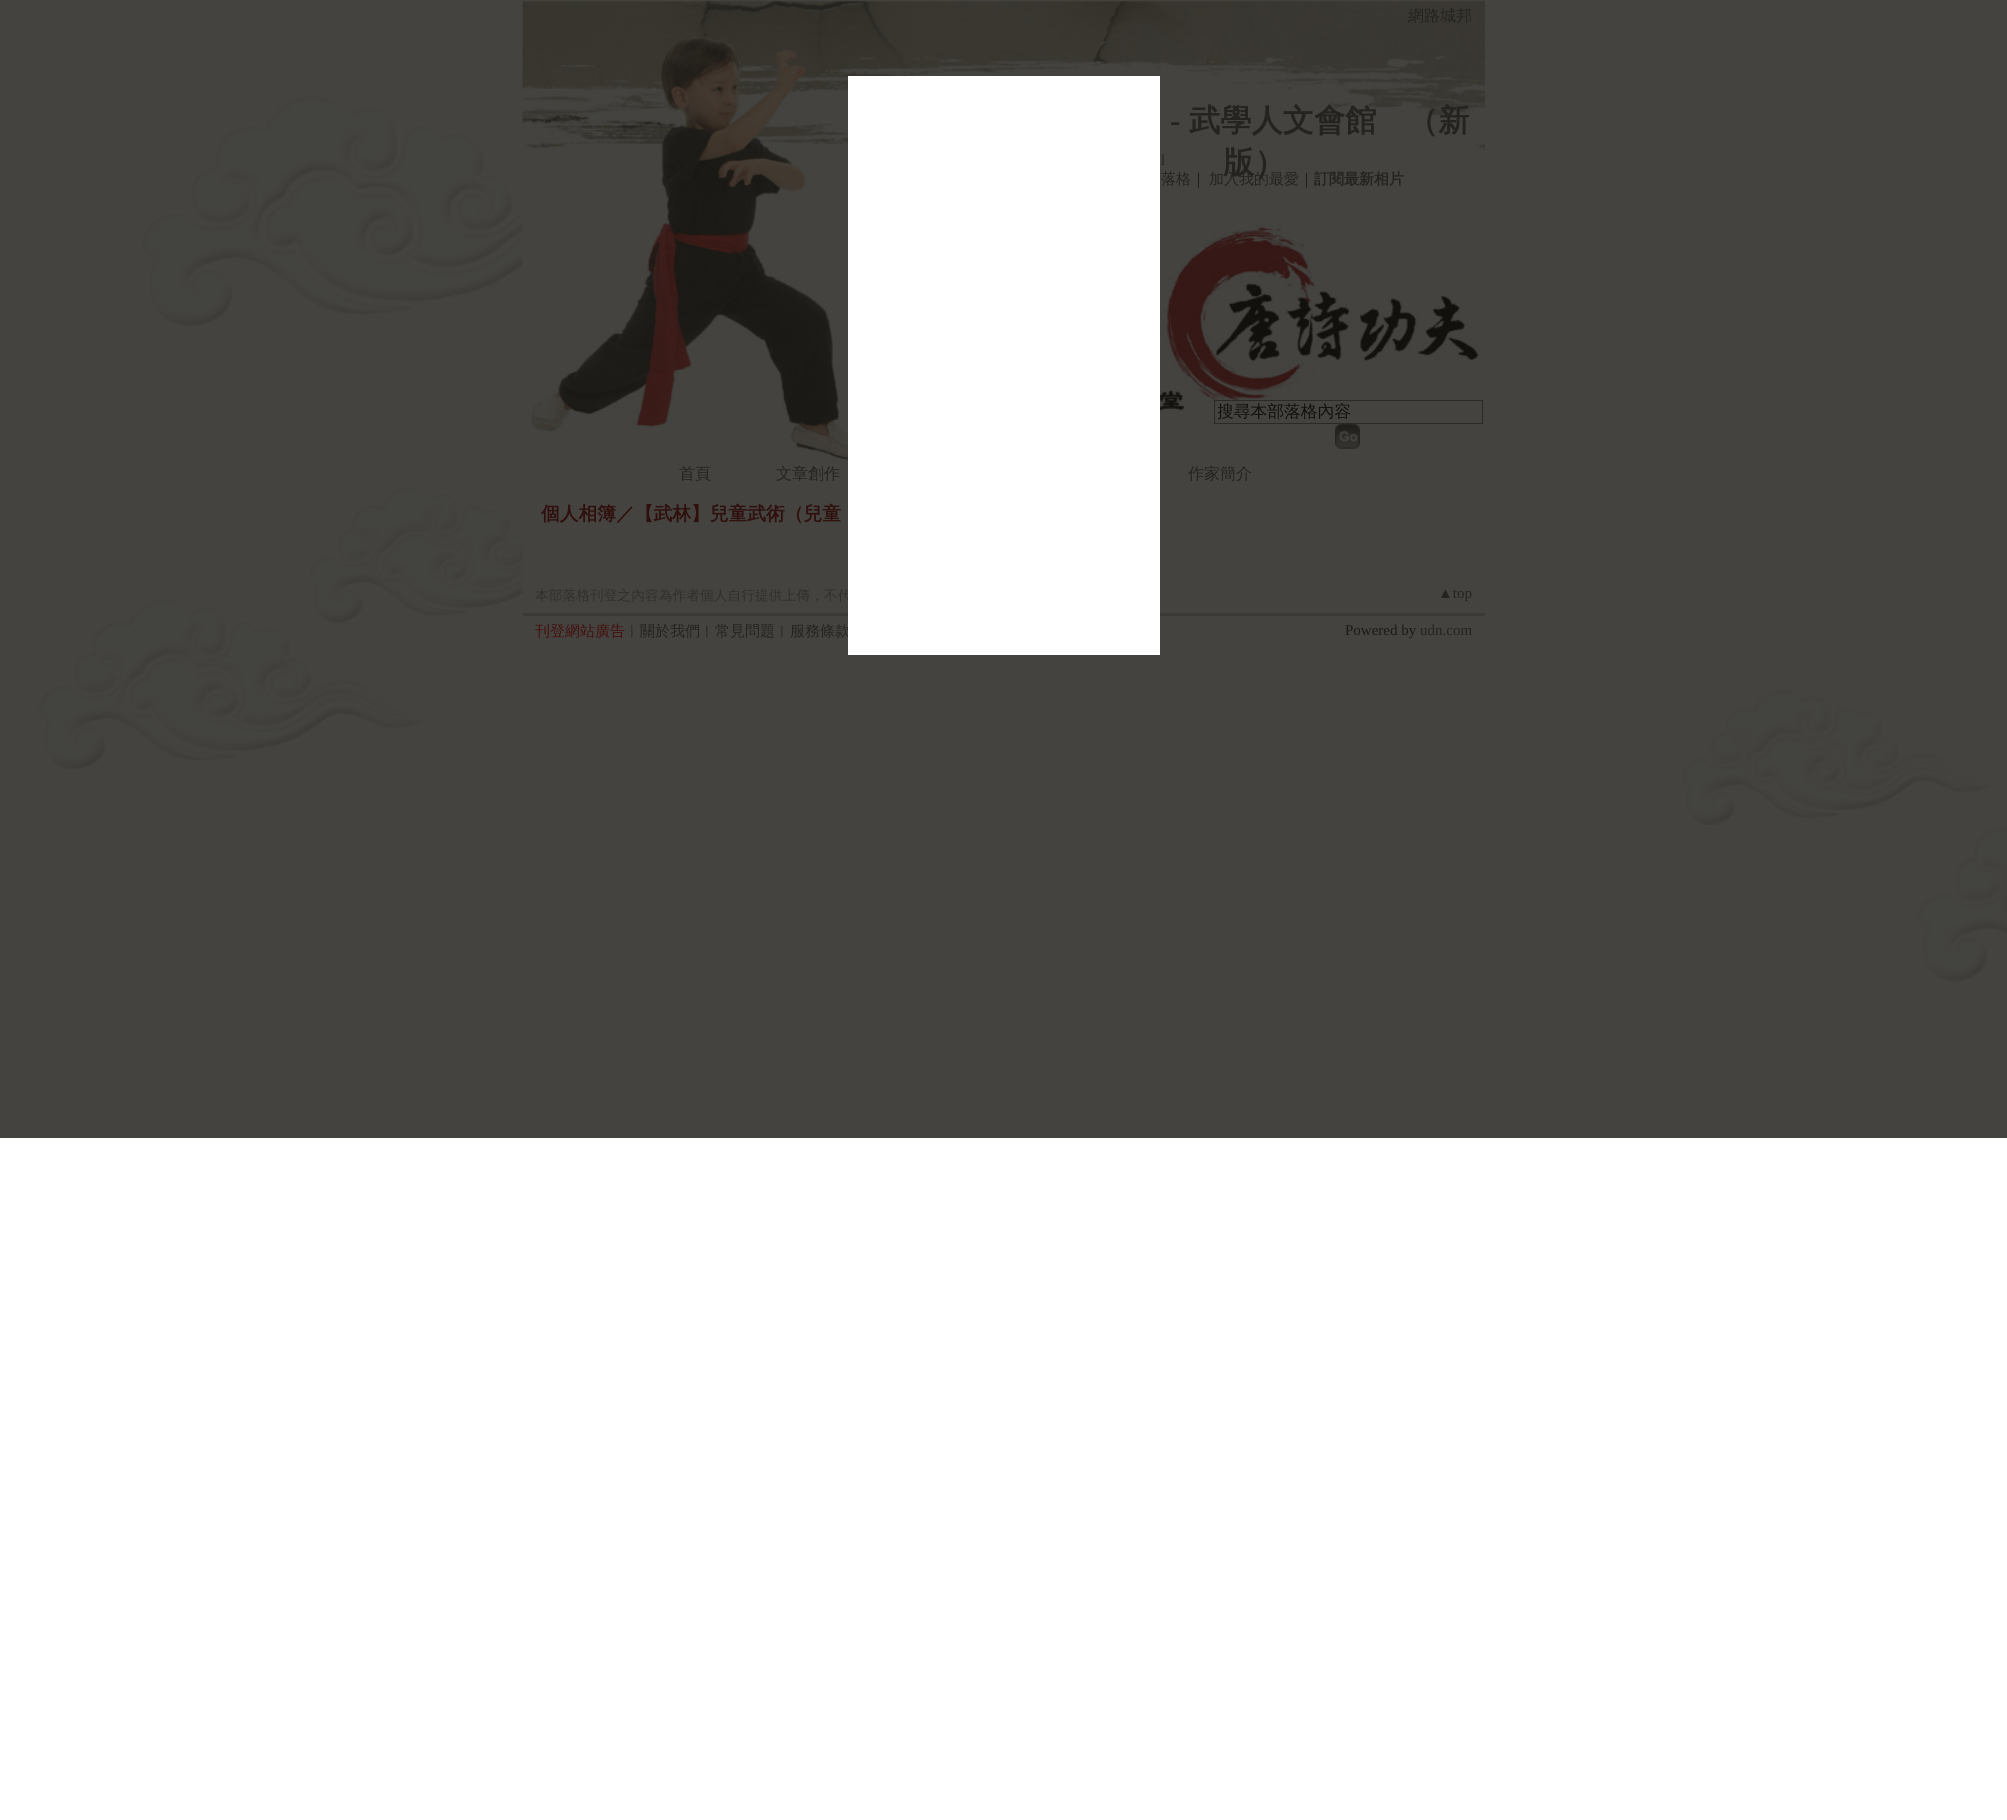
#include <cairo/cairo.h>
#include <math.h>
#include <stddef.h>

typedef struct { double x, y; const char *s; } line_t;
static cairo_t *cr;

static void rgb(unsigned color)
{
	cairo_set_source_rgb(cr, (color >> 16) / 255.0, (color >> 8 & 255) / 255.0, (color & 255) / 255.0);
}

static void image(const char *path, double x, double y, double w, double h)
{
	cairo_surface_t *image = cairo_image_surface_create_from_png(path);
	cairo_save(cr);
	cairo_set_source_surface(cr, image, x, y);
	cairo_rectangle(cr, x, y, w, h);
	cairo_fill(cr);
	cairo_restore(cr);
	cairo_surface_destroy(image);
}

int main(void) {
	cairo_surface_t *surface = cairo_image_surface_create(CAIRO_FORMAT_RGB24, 2007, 1820);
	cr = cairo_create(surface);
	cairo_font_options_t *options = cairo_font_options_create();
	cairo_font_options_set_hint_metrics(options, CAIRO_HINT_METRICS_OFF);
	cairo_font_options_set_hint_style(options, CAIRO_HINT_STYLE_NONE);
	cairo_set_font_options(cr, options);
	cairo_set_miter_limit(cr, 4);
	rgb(0xffffff);
	cairo_paint(cr);
	rgb(0x444340);
	cairo_rectangle(cr, 0, 0, 2007, 1138);
	cairo_fill(cr);
	image("img/1.png", 39, 96, 1968, 886);
	cairo_rectangle(cr, 523, 545, 93, 48);
	cairo_fill(cr);
	image("img/2.png", 522, 0, 963, 465);
	cairo_rectangle(cr, 1217, 401, 56, 11);
	cairo_fill(cr);
	cairo_rectangle(cr, 1214.5, 400.5, 268, 23);
	rgb(0x2a2a26);
	cairo_set_line_width(cr, 1);
	cairo_stroke(cr);
	image("img/3.png", 1335, 423, 25, 26);
	rgb(0x3a3936);
	cairo_rectangle(cr, 523, 613, 962, 3);
	cairo_fill(cr);
	cairo_select_font_face(cr, "WenQuanYi Zen Hei Medium", CAIRO_FONT_SLANT_NORMAL, CAIRO_FONT_WEIGHT_NORMAL);
	cairo_set_font_size(cr, 16);
	rgb(0x242320);
	cairo_move_to(cr, 1408, 21);
	cairo_show_text(cr, "網路城邦");
	cairo_select_font_face(cr, "Liberation Serif", CAIRO_FONT_SLANT_NORMAL, CAIRO_FONT_WEIGHT_NORMAL);
	cairo_set_font_size(cr, 15);
	cairo_move_to(cr, 1161, 165);
	cairo_show_text(cr, "l");
	cairo_select_font_face(cr, "Liberation Serif", CAIRO_FONT_SLANT_NORMAL, CAIRO_FONT_WEIGHT_BOLD);
	cairo_set_font_size(cr, 31.25);
	cairo_move_to(cr, 1170, 131);
	cairo_show_text(cr, "-");
	cairo_select_font_face(cr, "WenQuanYi Zen Hei", CAIRO_FONT_SLANT_NORMAL, CAIRO_FONT_WEIGHT_BOLD);
	{
		static const line_t items[] = {
			{1189, 131, "武學人文會館"},
			{1407, 131, "（新"},
			{1223, 173, "版）"},
		};
		for (size_t i = 0; i < sizeof items / sizeof *items; i++) {
			cairo_move_to(cr, items[i].x, items[i].y);
			cairo_show_text(cr, items[i].s);
		}
	}
	cairo_select_font_face(cr, "WenQuanYi Zen Hei Medium", CAIRO_FONT_SLANT_NORMAL, CAIRO_FONT_WEIGHT_NORMAL);
	cairo_set_font_size(cr, 15);
	cairo_move_to(cr, 1161, 184);
	cairo_show_text(cr, "落格");
	rgb(0x1b1a17);
	cairo_move_to(cr, 1191, 184);
	cairo_show_text(cr, "｜");
	rgb(0x242320);
	cairo_move_to(cr, 1209, 184);
	cairo_show_text(cr, "加入我的最愛");
	rgb(0x1b1a17);
	cairo_move_to(cr, 1299, 184);
	cairo_show_text(cr, "｜");
	cairo_select_font_face(cr, "WenQuanYi Zen Hei", CAIRO_FONT_SLANT_NORMAL, CAIRO_FONT_WEIGHT_BOLD);
	rgb(0x242320);
	cairo_move_to(cr, 1314, 184);
	cairo_show_text(cr, "訂閱最新相片");
	cairo_save(cr);
	cairo_rectangle(cr, 1218, 401, 261, 22);
	cairo_clip(cr);
	cairo_select_font_face(cr, "WenQuanYi Zen Hei Medium", CAIRO_FONT_SLANT_NORMAL, CAIRO_FONT_WEIGHT_NORMAL);
	cairo_set_font_size(cr, 16.75);
	rgb(0x11100d);
	cairo_move_to(cr, 1217, 417);
	cairo_show_text(cr, "搜尋本部落格內容");
	cairo_restore(cr);
	cairo_select_font_face(cr, "WenQuanYi Zen Hei Medium", CAIRO_FONT_SLANT_NORMAL, CAIRO_FONT_WEIGHT_NORMAL);
	cairo_set_font_size(cr, 16);
	{
		static const line_t items[] = {
			{679, 479, "首頁"},
			{776, 479, "文章創作"},
			{1188, 479, "作家簡介"},
		};
		for (size_t i = 0; i < sizeof items / sizeof *items; i++) {
			cairo_move_to(cr, items[i].x, items[i].y);
			cairo_show_text(cr, items[i].s);
		}
	}
	cairo_select_font_face(cr, "WenQuanYi Zen Hei", CAIRO_FONT_SLANT_NORMAL, CAIRO_FONT_WEIGHT_BOLD);
	cairo_set_font_size(cr, 18.75);
	rgb(0x2f100d);
	cairo_move_to(cr, 541, 520);
	cairo_show_text(cr, "個人相簿／【武林】兒童武術（兒童");
	cairo_select_font_face(cr, "WenQuanYi Zen Hei Medium", CAIRO_FONT_SLANT_NORMAL, CAIRO_FONT_WEIGHT_NORMAL);
	cairo_set_font_size(cr, 13.75);
	rgb(0x2f2f2b);
	cairo_move_to(cr, 535, 600);
	cairo_show_text(cr, "本部落格刊登之內容為作者個人自行提供上傳，不代");
	cairo_select_font_face(cr, "Liberation Serif", CAIRO_FONT_SLANT_NORMAL, CAIRO_FONT_WEIGHT_NORMAL);
	cairo_set_font_size(cr, 15);
	rgb(0x242320);
	cairo_move_to(cr, 1438, 598);
	cairo_show_text(cr, "▲top");
	cairo_select_font_face(cr, "WenQuanYi Zen Hei Medium", CAIRO_FONT_SLANT_NORMAL, CAIRO_FONT_WEIGHT_NORMAL);
	rgb(0x44100d);
	cairo_move_to(cr, 535, 636);
	cairo_show_text(cr, "刊登網站廣告");
	rgb(0x1b1a17);
	cairo_move_to(cr, 625, 636);
	cairo_show_text(cr, "︱");
	rgb(0x242320);
	cairo_move_to(cr, 640, 636);
	cairo_show_text(cr, "關於我們");
	rgb(0x1b1a17);
	cairo_move_to(cr, 700, 636);
	cairo_show_text(cr, "︱");
	rgb(0x242320);
	cairo_move_to(cr, 715, 636);
	cairo_show_text(cr, "常見問題");
	rgb(0x1b1a17);
	cairo_move_to(cr, 775, 636);
	cairo_show_text(cr, "︱");
	rgb(0x242320);
	cairo_move_to(cr, 790, 636);
	cairo_show_text(cr, "服務條款");
	cairo_select_font_face(cr, "Liberation Serif", CAIRO_FONT_SLANT_NORMAL, CAIRO_FONT_WEIGHT_NORMAL);
	rgb(0x1b1a17);
	cairo_move_to(cr, 1345, 635);
	cairo_show_text(cr, "Powered by");
	rgb(0x242320);
	cairo_move_to(cr, 1420, 635);
	cairo_show_text(cr, "udn.com");
	rgb(0xffffff);
	cairo_rectangle(cr, 848, 76, 312, 579);
	cairo_fill(cr);
	cairo_surface_write_to_png(surface, "page.png");
	cairo_font_options_destroy(options);
	cairo_destroy(cr);
	cairo_surface_destroy(surface);
	return 0;
}
